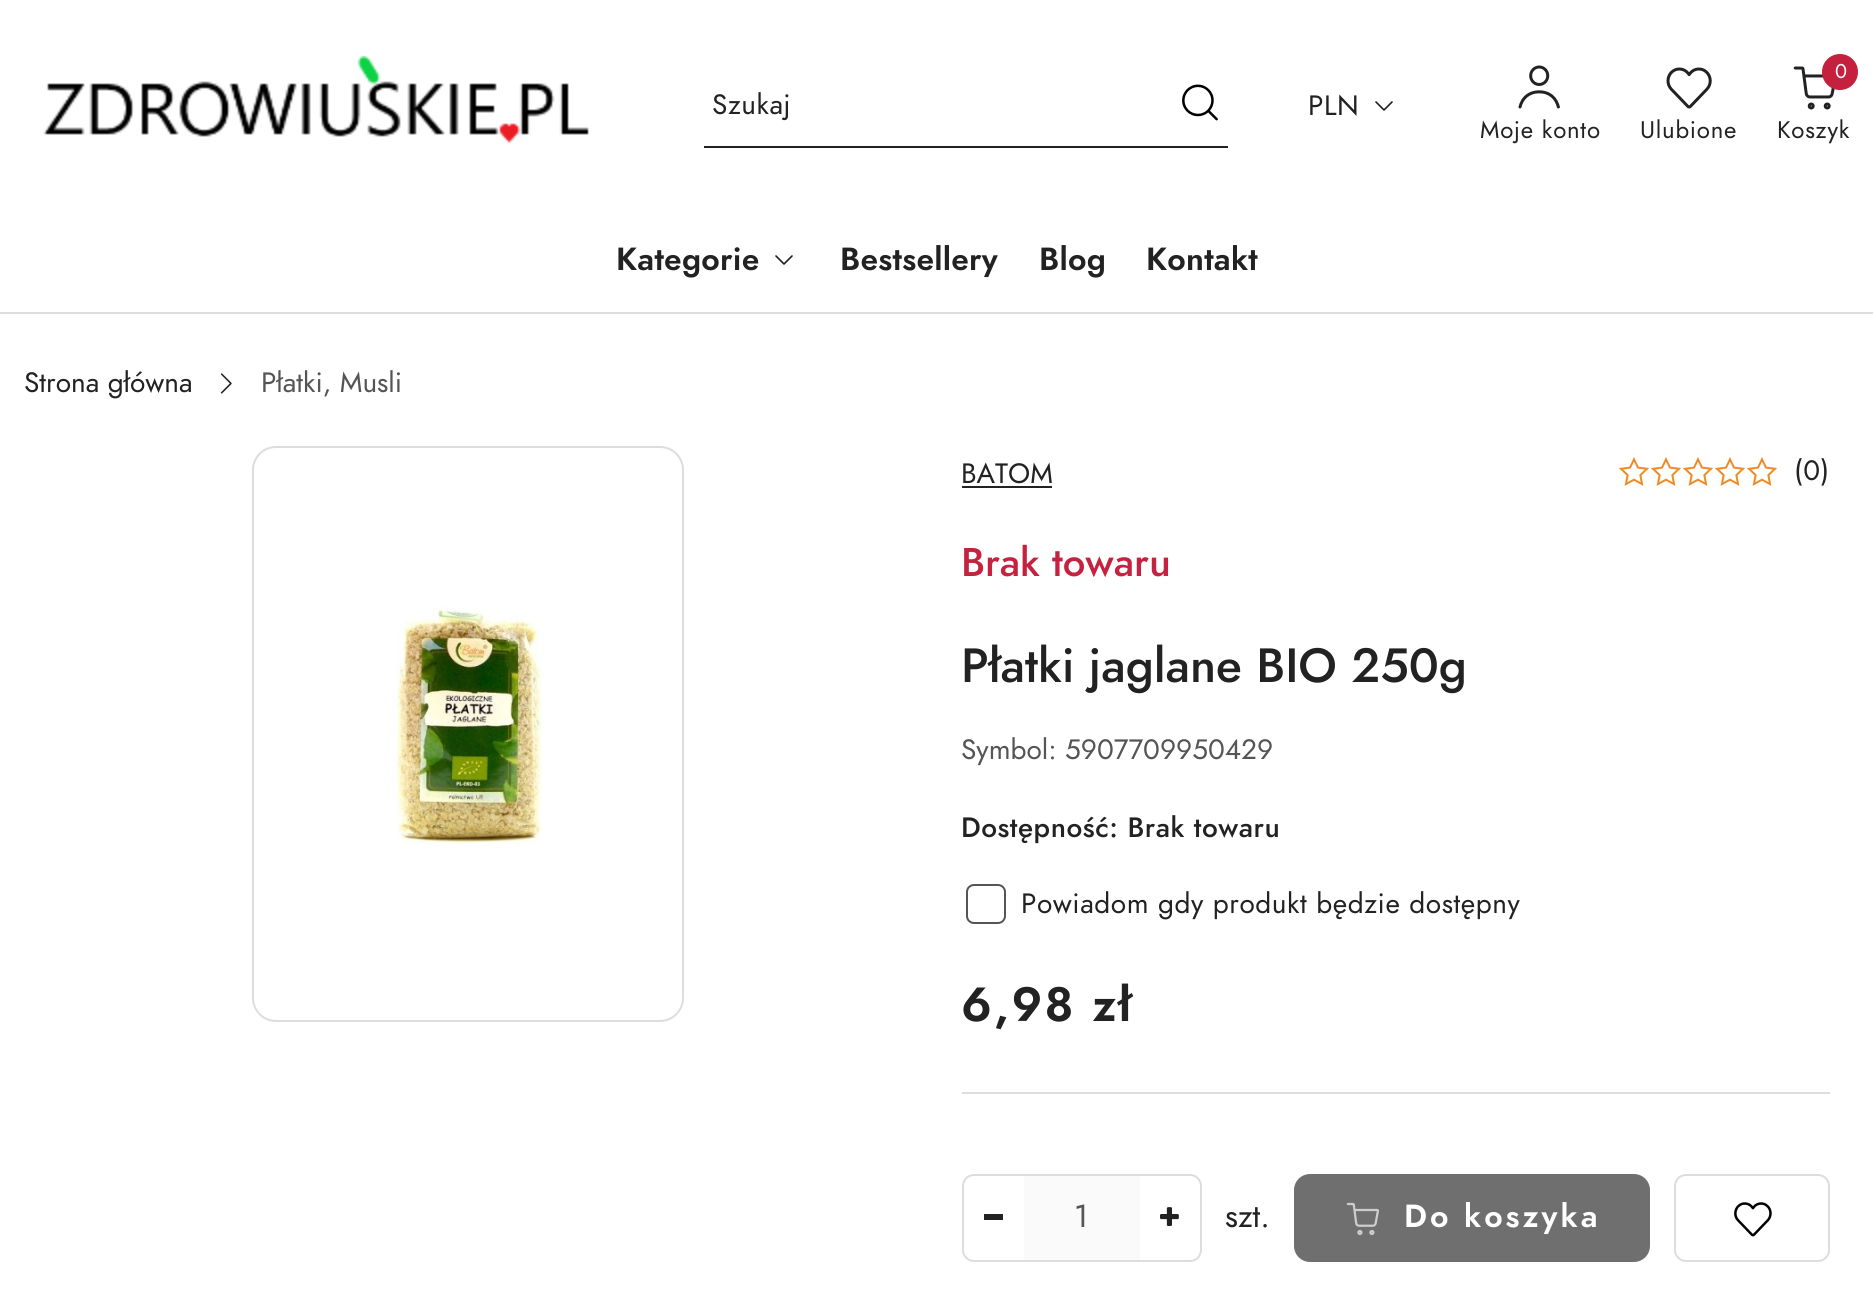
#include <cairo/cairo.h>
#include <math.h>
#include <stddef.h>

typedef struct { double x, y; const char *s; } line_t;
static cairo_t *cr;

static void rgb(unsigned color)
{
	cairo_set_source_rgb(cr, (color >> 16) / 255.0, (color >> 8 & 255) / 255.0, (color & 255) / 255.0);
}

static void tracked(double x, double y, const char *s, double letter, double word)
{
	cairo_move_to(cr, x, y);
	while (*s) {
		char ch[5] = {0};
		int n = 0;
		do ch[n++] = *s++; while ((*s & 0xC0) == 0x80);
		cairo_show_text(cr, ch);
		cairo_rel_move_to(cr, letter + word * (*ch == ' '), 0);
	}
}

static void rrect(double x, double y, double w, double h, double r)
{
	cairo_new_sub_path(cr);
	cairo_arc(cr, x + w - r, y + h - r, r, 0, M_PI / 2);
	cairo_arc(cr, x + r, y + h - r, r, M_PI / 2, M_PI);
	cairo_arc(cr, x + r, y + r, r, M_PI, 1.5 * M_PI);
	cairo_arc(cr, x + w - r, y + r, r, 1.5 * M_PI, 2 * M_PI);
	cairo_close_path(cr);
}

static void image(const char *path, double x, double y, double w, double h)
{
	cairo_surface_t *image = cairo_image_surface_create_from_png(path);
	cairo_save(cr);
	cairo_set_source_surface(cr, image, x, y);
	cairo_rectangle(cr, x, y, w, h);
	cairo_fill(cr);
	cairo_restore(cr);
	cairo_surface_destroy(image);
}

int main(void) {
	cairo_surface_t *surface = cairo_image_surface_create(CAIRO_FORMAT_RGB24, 1873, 1309);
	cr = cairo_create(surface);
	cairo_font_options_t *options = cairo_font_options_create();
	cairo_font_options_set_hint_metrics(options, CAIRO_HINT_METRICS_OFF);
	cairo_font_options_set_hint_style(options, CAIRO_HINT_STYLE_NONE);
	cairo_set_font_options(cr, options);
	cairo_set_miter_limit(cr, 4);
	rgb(0xffffff);
	cairo_paint(cr);
	image("img/1.png", 43, 56, 546, 87);
	rgb(0x222222);
	cairo_rectangle(cr, 704, 146, 524, 2);
	cairo_fill(cr);
	image("img/2.png", 1182, 84, 36, 37);
	image("img/3.png", 1375, 101, 18, 10);
	image("img/4.png", 1518, 65, 42, 44);
	image("img/5.png", 1666, 67, 46, 42);
	image("img/6.png", 1793, 66, 42, 44);
	rgb(0xc5203d);
	cairo_arc(cr, 1840, 72, 18, 0, 2 * M_PI);
	cairo_fill(cr);
	rgb(0xdddddd);
	cairo_rectangle(cr, 0, 312, 1873, 2);
	cairo_fill(cr);
	image("img/3.png", 775, 255, 18, 10);
	image("img/7.png", 220, 373, 12, 21);
	rrect(253, 447, 430, 574, 23);
	cairo_stroke(cr);
	image("img/8.png", 396, 603, 147, 241);
	rgb(0x222222);
	cairo_rectangle(cr, 962, 486, 90, 2);
	cairo_fill(cr);
	image("img/9.png", 1618, 457, 32, 29);
	image("img/9.png", 1650, 457, 32, 29);
	image("img/9.png", 1682, 457, 32, 29);
	image("img/9.png", 1714, 457, 32, 29);
	image("img/9.png", 1746, 457, 32, 29);
	rrect(967, 885, 38, 38, 7);
	rgb(0x555555);
	cairo_stroke(cr);
	rgb(0xdddddd);
	cairo_rectangle(cr, 962, 1092, 868, 2);
	cairo_fill(cr);
	rrect(963, 1175, 238, 86, 11);
	cairo_stroke(cr);
	rgb(0x222222);
	cairo_rectangle(cr, 984, 1214, 19, 6);
	cairo_fill(cr);
	rgb(0xfafafa);
	cairo_rectangle(cr, 1024, 1176, 116, 84);
	cairo_fill(cr);
	image("img/10.png", 1160, 1207, 19, 19);
	rgb(0x6f6f6f);
	rrect(1295, 1175, 354, 86, 15);
	cairo_fill_preserve(cr);
	cairo_stroke(cr);
	image("img/11.png", 1346, 1202, 33, 34);
	rrect(1675, 1175, 154, 86, 11);
	rgb(0xdddddd);
	cairo_stroke(cr);
	image("img/12.png", 1734, 1202, 38, 35);
	cairo_select_font_face(cr, "Jost", CAIRO_FONT_SLANT_NORMAL, CAIRO_FONT_WEIGHT_NORMAL);
	cairo_set_font_size(cr, 28);
	rgb(0x222222);
	tracked(712, 114, "Szukaj", 0.55, 0);
	tracked(1308, 115, "PLN", 0.55, 0);
	cairo_set_font_size(cr, 24);
	tracked(1480, 138, "Moje konto", 0.75, 0);
	tracked(1640, 138, "Ulubione", 0.75, 0);
	cairo_set_font_size(cr, 20);
	rgb(0xffffff);
	cairo_move_to(cr, 1835, 78);
	cairo_show_text(cr, "0");
	cairo_set_font_size(cr, 24);
	rgb(0x222222);
	tracked(1777, 138, "Koszyk", 0.75, 0);
	cairo_select_font_face(cr, "Jost SemiBold", CAIRO_FONT_SLANT_NORMAL, CAIRO_FONT_WEIGHT_NORMAL);
	cairo_set_font_size(cr, 32);
	{
		static const line_t items[] = {
			{616, 270, "Kategorie"},
			{840, 270, "Bestsellery"},
			{1039, 270, "Blog"},
			{1146, 270, "Kontakt"},
		};
		for (size_t i = 0; i < sizeof items / sizeof *items; i++) {
			tracked(items[i].x, items[i].y, items[i].s, 0.25, 0);
		}
	}
	cairo_select_font_face(cr, "Jost", CAIRO_FONT_SLANT_NORMAL, CAIRO_FONT_WEIGHT_NORMAL);
	cairo_set_font_size(cr, 28);
	cairo_move_to(cr, 24, 392);
	cairo_show_text(cr, "Strona główna");
	rgb(0x555555);
	cairo_move_to(cr, 261, 392);
	cairo_show_text(cr, "Płatki, Musli");
	rgb(0x222222);
	cairo_move_to(cr, 961, 483);
	cairo_show_text(cr, "BATOM");
	tracked(1794, 480, "(0)", 0.55, 0);
	cairo_select_font_face(cr, "Jost Medium", CAIRO_FONT_SLANT_NORMAL, CAIRO_FONT_WEIGHT_NORMAL);
	cairo_set_font_size(cr, 40);
	rgb(0xc52240);
	cairo_move_to(cr, 961, 576);
	cairo_show_text(cr, "Brak towaru");
	cairo_set_font_size(cr, 48);
	rgb(0x222222);
	cairo_move_to(cr, 961, 682);
	cairo_show_text(cr, "Płatki jaglane BIO 250g");
	cairo_select_font_face(cr, "Jost", CAIRO_FONT_SLANT_NORMAL, CAIRO_FONT_WEIGHT_NORMAL);
	cairo_set_font_size(cr, 28);
	rgb(0x555555);
	cairo_move_to(cr, 961, 759);
	cairo_show_text(cr, "Symbol: 5907709950429");
	cairo_select_font_face(cr, "Jost Medium", CAIRO_FONT_SLANT_NORMAL, CAIRO_FONT_WEIGHT_NORMAL);
	rgb(0x222222);
	tracked(961, 837, "Dostępność: Brak towaru", 0.55, 0);
	cairo_select_font_face(cr, "Jost", CAIRO_FONT_SLANT_NORMAL, CAIRO_FONT_WEIGHT_NORMAL);
	tracked(1021, 913, "Powiadom gdy produkt będzie dostępny", 0.55, 0);
	cairo_select_font_face(cr, "Jost SemiBold", CAIRO_FONT_SLANT_NORMAL, CAIRO_FONT_WEIGHT_NORMAL);
	cairo_set_font_size(cr, 48);
	tracked(961, 1021, "6,98 zł", 2.25, 0);
	cairo_select_font_face(cr, "Jost", CAIRO_FONT_SLANT_NORMAL, CAIRO_FONT_WEIGHT_NORMAL);
	cairo_set_font_size(cr, 32);
	rgb(0x555555);
	cairo_move_to(cr, 1074, 1227);
	cairo_show_text(cr, "1");
	rgb(0x222222);
	cairo_move_to(cr, 1225, 1227);
	cairo_show_text(cr, "szt.");
	cairo_select_font_face(cr, "Jost SemiBold", CAIRO_FONT_SLANT_NORMAL, CAIRO_FONT_WEIGHT_NORMAL);
	rgb(0xffffff);
	tracked(1404, 1227, "Do koszyka", 3, 0);
	cairo_surface_write_to_png(surface, "page.png");
	cairo_font_options_destroy(options);
	cairo_destroy(cr);
	cairo_surface_destroy(surface);
	return 0;
}
